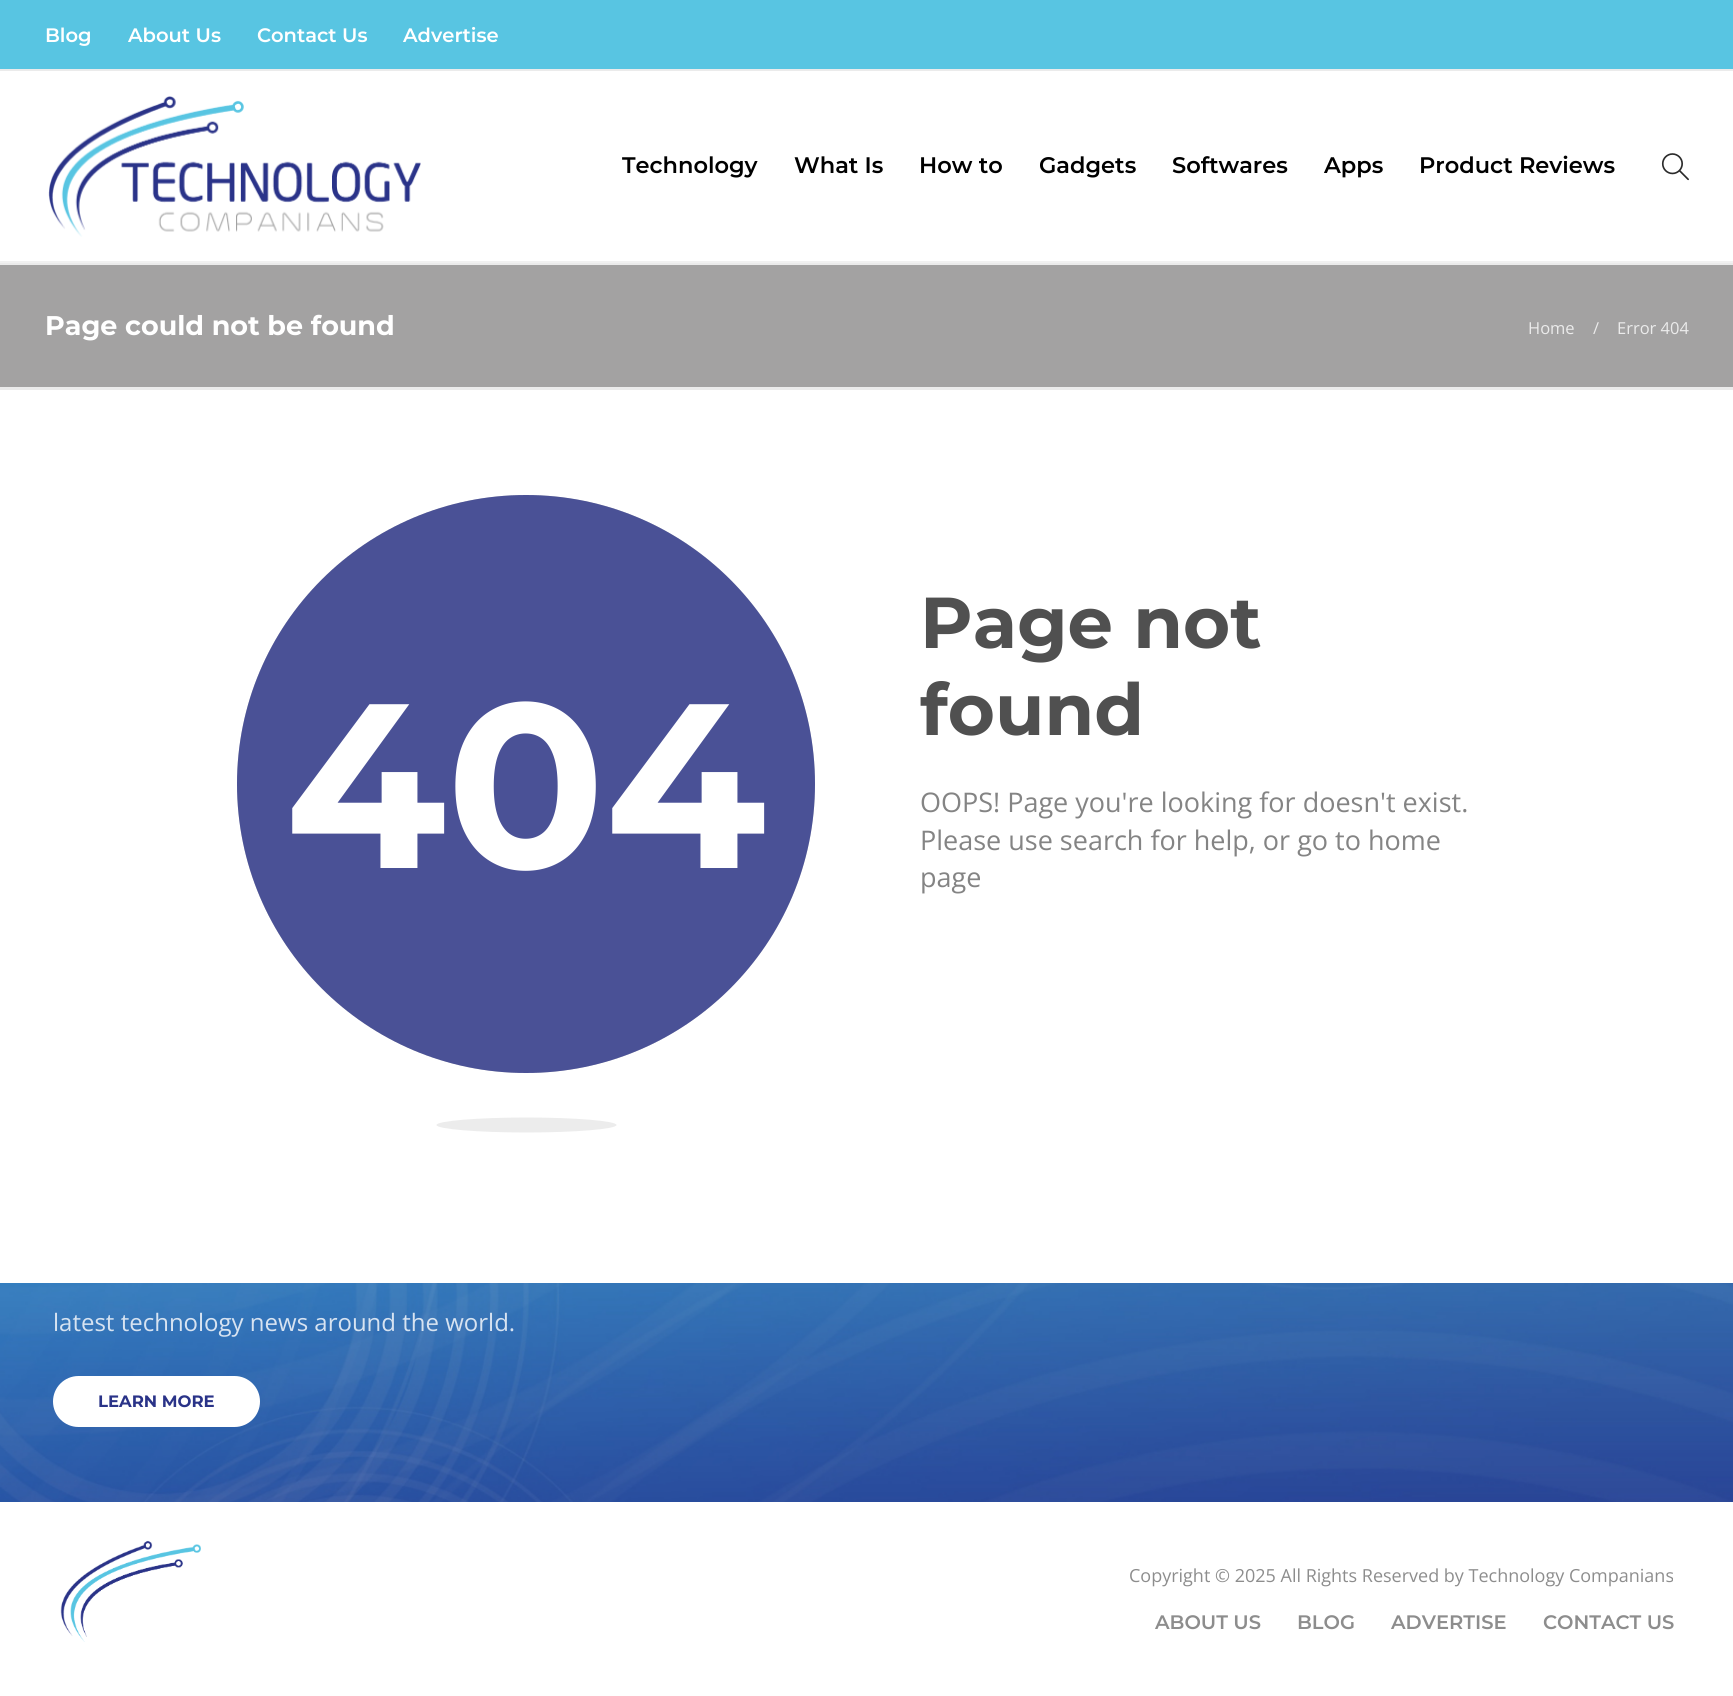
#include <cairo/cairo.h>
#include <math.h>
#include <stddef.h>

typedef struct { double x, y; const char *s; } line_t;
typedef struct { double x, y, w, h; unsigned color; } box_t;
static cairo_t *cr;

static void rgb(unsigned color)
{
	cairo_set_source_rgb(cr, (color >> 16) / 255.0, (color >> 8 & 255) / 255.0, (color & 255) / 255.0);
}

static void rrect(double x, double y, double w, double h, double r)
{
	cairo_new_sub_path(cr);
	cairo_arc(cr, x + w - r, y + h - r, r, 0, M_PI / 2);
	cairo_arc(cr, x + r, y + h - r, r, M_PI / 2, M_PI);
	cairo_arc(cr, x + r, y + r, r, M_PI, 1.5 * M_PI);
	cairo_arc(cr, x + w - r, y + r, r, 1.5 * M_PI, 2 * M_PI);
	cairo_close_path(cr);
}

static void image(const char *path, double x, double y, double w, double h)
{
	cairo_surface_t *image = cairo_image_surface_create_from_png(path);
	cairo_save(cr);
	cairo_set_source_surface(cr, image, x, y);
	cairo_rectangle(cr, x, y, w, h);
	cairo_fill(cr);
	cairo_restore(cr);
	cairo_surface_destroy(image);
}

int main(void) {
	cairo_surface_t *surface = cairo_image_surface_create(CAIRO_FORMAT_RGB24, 1733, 1696);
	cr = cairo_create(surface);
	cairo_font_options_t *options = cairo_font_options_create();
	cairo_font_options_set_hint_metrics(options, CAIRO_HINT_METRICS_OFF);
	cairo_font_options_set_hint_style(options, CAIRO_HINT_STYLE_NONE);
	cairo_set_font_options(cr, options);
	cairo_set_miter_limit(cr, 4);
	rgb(0xffffff);
	cairo_paint(cr);
	{
		static const box_t items[] = {
			{0, 0, 1733, 69, 0x58c5e2},
			{0, 69, 1733, 2, 0xebebeb},
			{0, 261, 1733, 2, 0xf1f1f1},
		};
		for (size_t i = 0; i < sizeof items / sizeof *items; i++) {
			rgb(items[i].color);
			cairo_rectangle(cr, items[i].x, items[i].y, items[i].w, items[i].h);
			cairo_fill(cr);
		}
	}
	image("img/1.png", 48, 96, 373, 141);
	image("img/2.png", 1661, 153, 28, 28);
	{
		static const box_t items[] = {
			{0, 265, 1733, 122, 0xa3a2a2},
			{0, 263, 1733, 2, 0xebebeb},
			{0, 387, 1733, 3, 0xebebeb},
		};
		for (size_t i = 0; i < sizeof items / sizeof *items; i++) {
			rgb(items[i].color);
			cairo_rectangle(cr, items[i].x, items[i].y, items[i].w, items[i].h);
			cairo_fill(cr);
		}
	}
	rgb(0xcccccc);
	cairo_arc(cr, 526, 784, 289, 0, 2 * M_PI);
	cairo_fill(cr);
	cairo_set_source_rgba(cr, 0.165, 0.2, 0.533, 0.8);
	cairo_arc(cr, 526, 784, 289, 0, 2 * M_PI);
	cairo_fill(cr);
	rgb(0xececec);
	cairo_new_path(cr);
	cairo_move_to(cr, 526.5, 1117.5);
	cairo_curve_to(cr, 576, 1117.5, 616.5, 1121, 616.5, 1125);
	cairo_curve_to(cr, 616.5, 1129, 576, 1132.5, 526.5, 1132.5);
	cairo_curve_to(cr, 477, 1132.5, 436.5, 1129, 436.5, 1125);
	cairo_curve_to(cr, 436.5, 1121, 477, 1117.5, 526.5, 1117.5);
	cairo_close_path(cr);
	cairo_fill(cr);
	image("img/3.png", 0, 1283, 1733, 219);
	rgb(0xffffff);
	rrect(53, 1376, 207, 51, 25.5);
	cairo_fill(cr);
	image("img/4.png", 60, 1540, 141, 102);
	cairo_select_font_face(cr, "Montserrat SemiBold", CAIRO_FONT_SLANT_NORMAL, CAIRO_FONT_WEIGHT_NORMAL);
	cairo_set_font_size(cr, 19.5);
	{
		static const line_t items[] = {
			{45, 42, "Blog"},
			{128, 42, "About Us"},
			{257, 42, "Contact Us"},
			{403, 42, "Advertise"},
		};
		for (size_t i = 0; i < sizeof items / sizeof *items; i++) {
			cairo_move_to(cr, items[i].x, items[i].y);
			cairo_show_text(cr, items[i].s);
		}
	}
	cairo_set_font_size(cr, 22.5);
	rgb(0x000000);
	{
		static const line_t items[] = {
			{622, 173, "Technology"},
			{794, 173, "What Is"},
			{919, 173, "How to"},
			{1039, 173, "Gadgets"},
			{1172, 173, "Softwares"},
			{1324, 173, "Apps"},
			{1419, 173, "Product Reviews"},
		};
		for (size_t i = 0; i < sizeof items / sizeof *items; i++) {
			cairo_move_to(cr, items[i].x, items[i].y);
			cairo_show_text(cr, items[i].s);
		}
	}
	cairo_select_font_face(cr, "Montserrat", CAIRO_FONT_SLANT_NORMAL, CAIRO_FONT_WEIGHT_BOLD);
	cairo_set_font_size(cr, 27);
	rgb(0xffffff);
	cairo_move_to(cr, 45, 335);
	cairo_show_text(cr, "Page could not be found");
	cairo_select_font_face(cr, "Open Sans", CAIRO_FONT_SLANT_NORMAL, CAIRO_FONT_WEIGHT_NORMAL);
	cairo_set_font_size(cr, 16.5);
	rgb(0xebebeb);
	{
		static const line_t items[] = {
			{1528, 334, "Home"},
			{1593, 334, "/"},
			{1617, 334, "Error 404"},
		};
		for (size_t i = 0; i < sizeof items / sizeof *items; i++) {
			cairo_move_to(cr, items[i].x, items[i].y);
			cairo_show_text(cr, items[i].s);
		}
	}
	cairo_select_font_face(cr, "Montserrat", CAIRO_FONT_SLANT_NORMAL, CAIRO_FONT_WEIGHT_BOLD);
	cairo_set_font_size(cr, 234);
	rgb(0xffffff);
	cairo_move_to(cr, 285, 868);
	cairo_show_text(cr, "404");
	cairo_set_font_size(cr, 72);
	rgb(0x505050);
	cairo_move_to(cr, 920, 648);
	cairo_show_text(cr, "Page not");
	cairo_move_to(cr, 920, 735);
	cairo_show_text(cr, "found");
	cairo_select_font_face(cr, "Open Sans", CAIRO_FONT_SLANT_NORMAL, CAIRO_FONT_WEIGHT_NORMAL);
	cairo_set_font_size(cr, 27);
	rgb(0x848484);
	{
		static const line_t items[] = {
			{920, 812, "OOPS! Page you're looking for doesn't exist."},
			{920, 850, "Please use search for help, or go to home"},
			{920, 887, "page"},
		};
		for (size_t i = 0; i < sizeof items / sizeof *items; i++) {
			cairo_move_to(cr, items[i].x, items[i].y);
			cairo_show_text(cr, items[i].s);
		}
	}
	cairo_set_font_size(cr, 24);
	rgb(0xd7e3f1);
	cairo_move_to(cr, 53, 1331);
	cairo_show_text(cr, "latest technology news around the world.");
	cairo_select_font_face(cr, "Montserrat", CAIRO_FONT_SLANT_NORMAL, CAIRO_FONT_WEIGHT_BOLD);
	cairo_set_font_size(cr, 16.5);
	rgb(0x2a3388);
	cairo_move_to(cr, 98, 1407);
	cairo_show_text(cr, "LEARN MORE");
	cairo_select_font_face(cr, "Open Sans", CAIRO_FONT_SLANT_NORMAL, CAIRO_FONT_WEIGHT_NORMAL);
	cairo_set_font_size(cr, 18);
	rgb(0x8d8d8d);
	cairo_move_to(cr, 1129, 1582);
	cairo_show_text(cr, "Copyright © 2025 All Rights Reserved by Technology Companians");
	cairo_select_font_face(cr, "Montserrat SemiBold", CAIRO_FONT_SLANT_NORMAL, CAIRO_FONT_WEIGHT_NORMAL);
	cairo_set_font_size(cr, 19.5);
	{
		static const line_t items[] = {
			{1155, 1629, "ABOUT US"},
			{1297, 1629, "BLOG"},
			{1391, 1629, "ADVERTISE"},
			{1543, 1629, "CONTACT US"},
		};
		for (size_t i = 0; i < sizeof items / sizeof *items; i++) {
			cairo_move_to(cr, items[i].x, items[i].y);
			cairo_show_text(cr, items[i].s);
		}
	}
	cairo_surface_write_to_png(surface, "page.png");
	cairo_font_options_destroy(options);
	cairo_destroy(cr);
	cairo_surface_destroy(surface);
	return 0;
}
